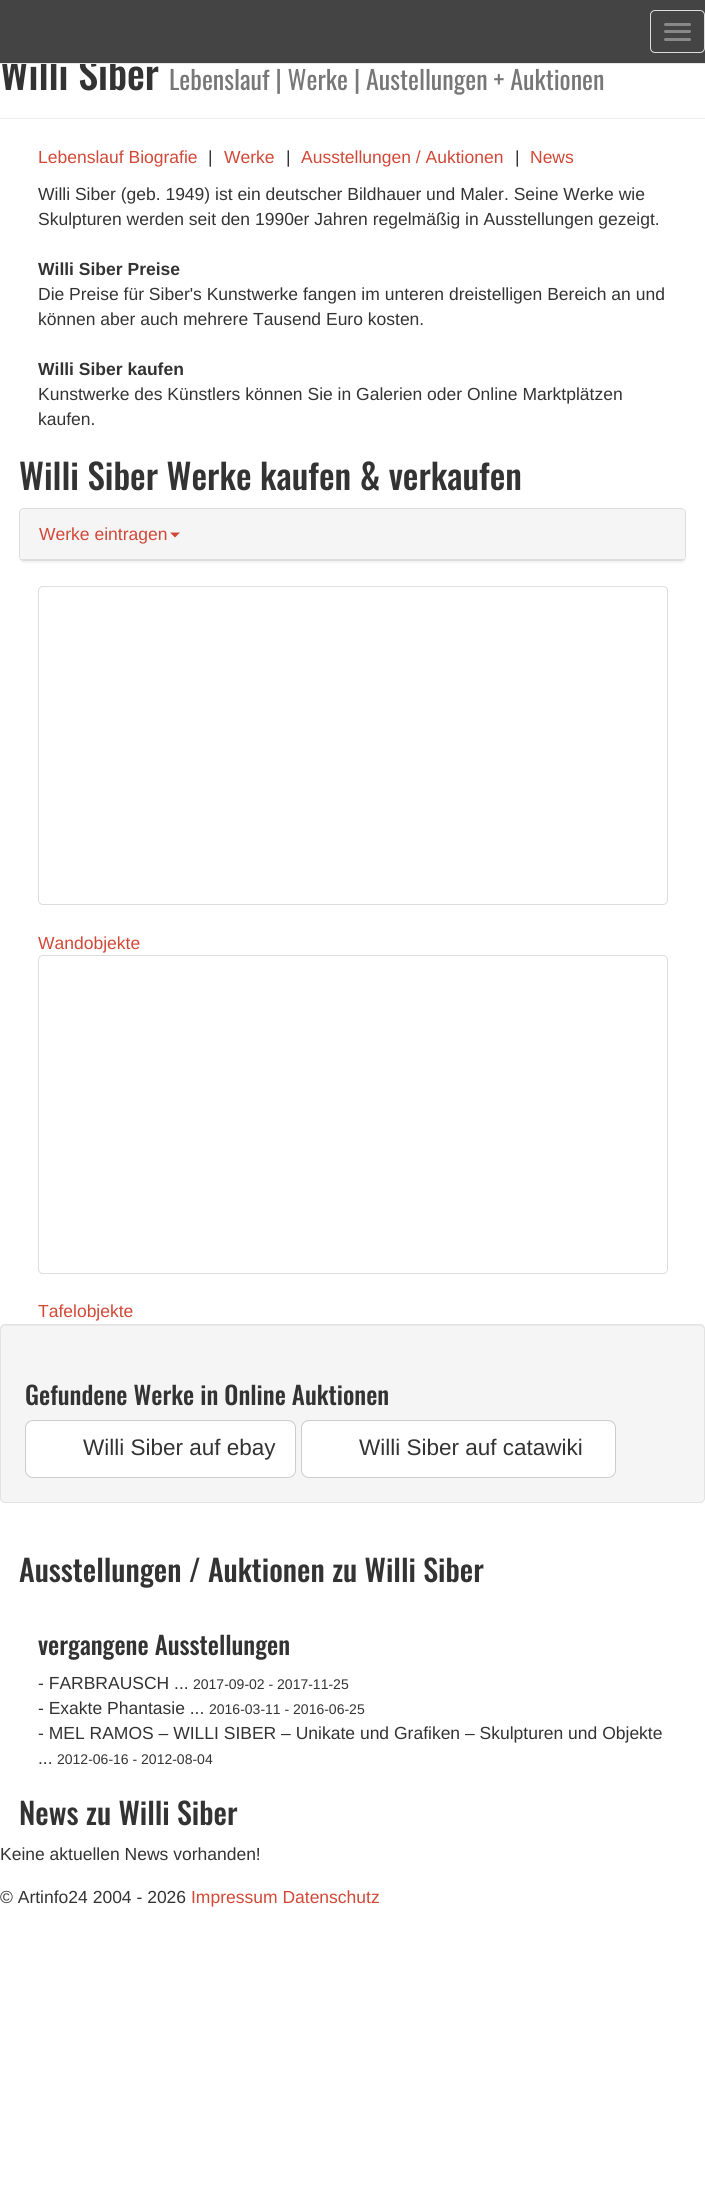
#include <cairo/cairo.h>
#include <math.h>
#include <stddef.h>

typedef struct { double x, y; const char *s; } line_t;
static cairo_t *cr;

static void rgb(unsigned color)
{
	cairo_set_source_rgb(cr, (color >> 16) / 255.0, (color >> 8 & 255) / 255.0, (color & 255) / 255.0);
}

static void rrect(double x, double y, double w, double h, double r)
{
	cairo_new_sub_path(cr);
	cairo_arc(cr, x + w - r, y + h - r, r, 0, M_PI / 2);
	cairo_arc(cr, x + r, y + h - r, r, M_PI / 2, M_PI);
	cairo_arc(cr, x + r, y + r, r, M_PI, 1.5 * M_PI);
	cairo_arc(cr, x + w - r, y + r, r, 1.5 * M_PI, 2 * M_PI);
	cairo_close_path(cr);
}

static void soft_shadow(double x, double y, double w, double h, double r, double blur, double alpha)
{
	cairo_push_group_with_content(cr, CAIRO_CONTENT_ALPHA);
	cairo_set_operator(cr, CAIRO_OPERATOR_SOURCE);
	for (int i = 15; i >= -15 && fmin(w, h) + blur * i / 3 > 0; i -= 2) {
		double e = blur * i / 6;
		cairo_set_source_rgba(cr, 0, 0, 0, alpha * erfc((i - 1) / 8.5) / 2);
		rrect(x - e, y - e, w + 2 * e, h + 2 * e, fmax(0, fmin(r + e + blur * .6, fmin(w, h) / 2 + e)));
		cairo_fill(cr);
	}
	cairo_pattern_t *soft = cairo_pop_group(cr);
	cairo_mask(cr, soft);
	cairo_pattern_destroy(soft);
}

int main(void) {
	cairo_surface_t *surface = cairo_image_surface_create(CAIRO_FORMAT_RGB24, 705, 2199);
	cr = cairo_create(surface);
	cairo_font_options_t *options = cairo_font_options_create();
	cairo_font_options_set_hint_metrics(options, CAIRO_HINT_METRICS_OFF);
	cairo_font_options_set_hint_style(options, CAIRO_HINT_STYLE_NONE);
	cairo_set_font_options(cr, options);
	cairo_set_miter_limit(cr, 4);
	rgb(0xffffff);
	cairo_paint(cr);
	rgb(0xeeeeee);
	cairo_rectangle(cr, 0, 118, 705, 1);
	cairo_fill(cr);
	rgb(0x000000);
	soft_shadow(19, 509, 667, 54, 5, 0.5, 0.05);
	rrect(19.5, 508.5, 666, 52, 4.5);
	rgb(0xdddddd);
	cairo_set_line_width(cr, 1);
	cairo_stroke(cr);
	rgb(0xf5f5f5);
	cairo_new_path(cr);
	cairo_move_to(cr, 24, 509);
	cairo_line_to(cr, 681, 509);
	cairo_curve_to(cr, 683, 509, 685, 511, 685, 513);
	cairo_line_to(cr, 685, 560);
	cairo_line_to(cr, 20, 560);
	cairo_line_to(cr, 20, 513);
	cairo_curve_to(cr, 20, 511, 22, 509, 24, 509);
	cairo_close_path(cr);
	cairo_fill(cr);
	rgb(0xdddddd);
	cairo_rectangle(cr, 20, 559, 665, 1);
	cairo_fill(cr);
	rgb(0xd14836);
	cairo_new_path(cr);
	cairo_move_to(cr, 170, 532.5);
	cairo_line_to(cr, 180, 532.5);
	cairo_line_to(cr, 175, 537.5);
	cairo_close_path(cr);
	cairo_fill(cr);
	rrect(38.5, 586.5, 629, 318, 4.5);
	rgb(0xdddddd);
	cairo_stroke(cr);
	rrect(38.5, 955.5, 629, 318, 4.5);
	cairo_stroke(cr);
	rgb(0xf5f5f5);
	rrect(0, 1324, 705, 179, 5);
	cairo_fill(cr);
	rgb(0xe9e9e9);
	cairo_new_path(cr);
	cairo_move_to(cr, 5, 1326);
	cairo_line_to(cr, 700, 1326);
	cairo_curve_to(cr, 702, 1326, 704, 1328, 704, 1330);
	cairo_curve_to(cr, 704, 1327, 703, 1325, 700, 1325);
	cairo_line_to(cr, 5, 1325);
	cairo_line_to(cr, 2, 1326);
	cairo_line_to(cr, 1, 1327);
	cairo_line_to(cr, 1, 1330);
	cairo_curve_to(cr, 1, 1328, 3, 1326, 5, 1326);
	cairo_close_path(cr);
	cairo_fill(cr);
	rrect(0.5, 1324.5, 704, 178, 4.5);
	rgb(0xe3e3e3);
	cairo_stroke(cr);
	rgb(0xffffff);
	rrect(25.5, 1420.5, 270, 57, 7.5);
	cairo_fill_preserve(cr);
	rgb(0xcccccc);
	cairo_stroke(cr);
	rgb(0xffffff);
	rrect(301.5, 1420.5, 314, 57, 7.5);
	cairo_fill_preserve(cr);
	rgb(0xcccccc);
	cairo_stroke(cr);
	cairo_select_font_face(cr, "Oswald Medium", CAIRO_FONT_SLANT_NORMAL, CAIRO_FONT_WEIGHT_NORMAL);
	cairo_set_font_size(cr, 40);
	rgb(0x333333);
	cairo_move_to(cr, 0, 90);
	cairo_show_text(cr, "Willi Siber");
	rgb(0x444444);
	cairo_rectangle(cr, 0, 0, 705, 63);
	cairo_fill(cr);
	rrect(650.5, 10.5, 54, 42, 4.5);
	rgb(0xdddddd);
	cairo_stroke(cr);
	rgb(0x888888);
	rrect(664, 38, 27, 3, 1.5);
	cairo_fill(cr);
	rrect(664, 30, 27, 3, 1.5);
	cairo_fill(cr);
	rrect(664, 23, 27, 3, 1.5);
	cairo_fill(cr);
	rgb(0xe7e7e7);
	cairo_rectangle(cr, 0, 63, 705, 1);
	cairo_fill(cr);
	cairo_select_font_face(cr, "Oswald", CAIRO_FONT_SLANT_NORMAL, CAIRO_FONT_WEIGHT_NORMAL);
	cairo_set_font_size(cr, 26);
	rgb(0x777777);
	cairo_move_to(cr, 169, 90);
	cairo_show_text(cr, "Lebenslauf | Werke | Austellungen + Auktionen");
	cairo_select_font_face(cr, "Liberation Sans", CAIRO_FONT_SLANT_NORMAL, CAIRO_FONT_WEIGHT_NORMAL);
	cairo_set_font_size(cr, 17.5);
	rgb(0xd14836);
	cairo_move_to(cr, 38, 163);
	cairo_show_text(cr, "Lebenslauf Biografie");
	rgb(0x333333);
	cairo_move_to(cr, 208, 163);
	cairo_show_text(cr, "|");
	rgb(0xd14836);
	cairo_move_to(cr, 224, 163);
	cairo_show_text(cr, "Werke");
	rgb(0x333333);
	cairo_move_to(cr, 286, 163);
	cairo_show_text(cr, "|");
	rgb(0xd14836);
	cairo_move_to(cr, 301, 163);
	cairo_show_text(cr, "Ausstellungen / Auktionen");
	rgb(0x333333);
	cairo_move_to(cr, 515, 163);
	cairo_show_text(cr, "|");
	rgb(0xd14836);
	cairo_move_to(cr, 530, 163);
	cairo_show_text(cr, "News");
	rgb(0x333333);
	cairo_move_to(cr, 38, 200);
	cairo_show_text(cr, "Willi Siber (geb. 1949) ist ein deutscher Bildhauer und Maler. Seine Werke wie");
	cairo_move_to(cr, 38, 225);
	cairo_show_text(cr, "Skulpturen werden seit den 1990er Jahren regelmäßig in Ausstellungen gezeigt.");
	cairo_select_font_face(cr, "Liberation Sans", CAIRO_FONT_SLANT_NORMAL, CAIRO_FONT_WEIGHT_BOLD);
	cairo_move_to(cr, 38, 275);
	cairo_show_text(cr, "Willi Siber Preise");
	cairo_select_font_face(cr, "Liberation Sans", CAIRO_FONT_SLANT_NORMAL, CAIRO_FONT_WEIGHT_NORMAL);
	cairo_move_to(cr, 38, 300);
	cairo_show_text(cr, "Die Preise für Siber's Kunstwerke fangen im unteren dreistelligen Bereich an und");
	cairo_move_to(cr, 38, 325);
	cairo_show_text(cr, "können aber auch mehrere Tausend Euro kosten.");
	cairo_select_font_face(cr, "Liberation Sans", CAIRO_FONT_SLANT_NORMAL, CAIRO_FONT_WEIGHT_BOLD);
	cairo_move_to(cr, 38, 375);
	cairo_show_text(cr, "Willi Siber kaufen");
	cairo_select_font_face(cr, "Liberation Sans", CAIRO_FONT_SLANT_NORMAL, CAIRO_FONT_WEIGHT_NORMAL);
	cairo_move_to(cr, 38, 400);
	cairo_show_text(cr, "Kunstwerke des Künstlers können Sie in Galerien oder Online Marktplätzen");
	cairo_move_to(cr, 38, 425);
	cairo_show_text(cr, "kaufen.");
	cairo_select_font_face(cr, "Oswald Medium", CAIRO_FONT_SLANT_NORMAL, CAIRO_FONT_WEIGHT_NORMAL);
	cairo_set_font_size(cr, 35);
	cairo_move_to(cr, 19, 490);
	cairo_show_text(cr, "Willi Siber Werke kaufen & verkaufen");
	cairo_select_font_face(cr, "Liberation Sans", CAIRO_FONT_SLANT_NORMAL, CAIRO_FONT_WEIGHT_NORMAL);
	cairo_set_font_size(cr, 17.5);
	rgb(0xd14836);
	{
		static const line_t items[] = {
			{39, 540, "Werke eintragen"},
			{38, 949, "Wandobjekte"},
			{38, 1317, "Tafelobjekte"},
		};
		for (size_t i = 0; i < sizeof items / sizeof *items; i++) {
			cairo_move_to(cr, items[i].x, items[i].y);
			cairo_show_text(cr, items[i].s);
		}
	}
	cairo_select_font_face(cr, "Oswald Medium", CAIRO_FONT_SLANT_NORMAL, CAIRO_FONT_WEIGHT_NORMAL);
	cairo_set_font_size(cr, 25);
	rgb(0x333333);
	cairo_move_to(cr, 25, 1405);
	cairo_show_text(cr, "Gefundene Werke in Online Auktionen");
	cairo_select_font_face(cr, "Liberation Sans", CAIRO_FONT_SLANT_NORMAL, CAIRO_FONT_WEIGHT_NORMAL);
	cairo_set_font_size(cr, 22.5);
	cairo_move_to(cr, 83, 1455);
	cairo_show_text(cr, "Willi Siber auf ebay");
	cairo_move_to(cr, 359, 1455);
	cairo_show_text(cr, "Willi Siber auf catawiki");
	cairo_select_font_face(cr, "Oswald Medium", CAIRO_FONT_SLANT_NORMAL, CAIRO_FONT_WEIGHT_NORMAL);
	cairo_set_font_size(cr, 30);
	cairo_move_to(cr, 19, 1582);
	cairo_show_text(cr, "Ausstellungen / Auktionen zu Willi Siber");
	cairo_set_font_size(cr, 25);
	cairo_move_to(cr, 38, 1655);
	cairo_show_text(cr, "vergangene Ausstellungen");
	cairo_select_font_face(cr, "Liberation Sans", CAIRO_FONT_SLANT_NORMAL, CAIRO_FONT_WEIGHT_NORMAL);
	cairo_set_font_size(cr, 17.5);
	cairo_move_to(cr, 38, 1689);
	cairo_show_text(cr, "- FARBRAUSCH ...");
	cairo_set_font_size(cr, 14);
	cairo_move_to(cr, 193, 1689);
	cairo_show_text(cr, "2017-09-02 - 2017-11-25");
	cairo_set_font_size(cr, 17.5);
	cairo_move_to(cr, 38, 1714);
	cairo_show_text(cr, "- Exakte Phantasie ...");
	cairo_set_font_size(cr, 14);
	cairo_move_to(cr, 209, 1714);
	cairo_show_text(cr, "2016-03-11 - 2016-06-25");
	cairo_set_font_size(cr, 17.5);
	cairo_move_to(cr, 38, 1739);
	cairo_show_text(cr, "- MEL RAMOS – WILLI SIBER – Unikate und Grafiken – Skulpturen und Objekte");
	cairo_move_to(cr, 38, 1764);
	cairo_show_text(cr, "...");
	cairo_set_font_size(cr, 14);
	cairo_move_to(cr, 57, 1764);
	cairo_show_text(cr, "2012-06-16 - 2012-08-04");
	cairo_select_font_face(cr, "Oswald Medium", CAIRO_FONT_SLANT_NORMAL, CAIRO_FONT_WEIGHT_NORMAL);
	cairo_set_font_size(cr, 30);
	cairo_move_to(cr, 19, 1825);
	cairo_show_text(cr, "News zu Willi Siber");
	cairo_select_font_face(cr, "Liberation Sans", CAIRO_FONT_SLANT_NORMAL, CAIRO_FONT_WEIGHT_NORMAL);
	cairo_set_font_size(cr, 17.5);
	cairo_move_to(cr, 0, 1860);
	cairo_show_text(cr, "Keine aktuellen News vorhanden!");
	cairo_move_to(cr, 0, 1903);
	cairo_show_text(cr, "© Artinfo24 2004 - 2026");
	rgb(0xd14836);
	cairo_move_to(cr, 191, 1903);
	cairo_show_text(cr, "Impressum Datenschutz");
	cairo_surface_write_to_png(surface, "page.png");
	cairo_font_options_destroy(options);
	cairo_destroy(cr);
	cairo_surface_destroy(surface);
	return 0;
}
